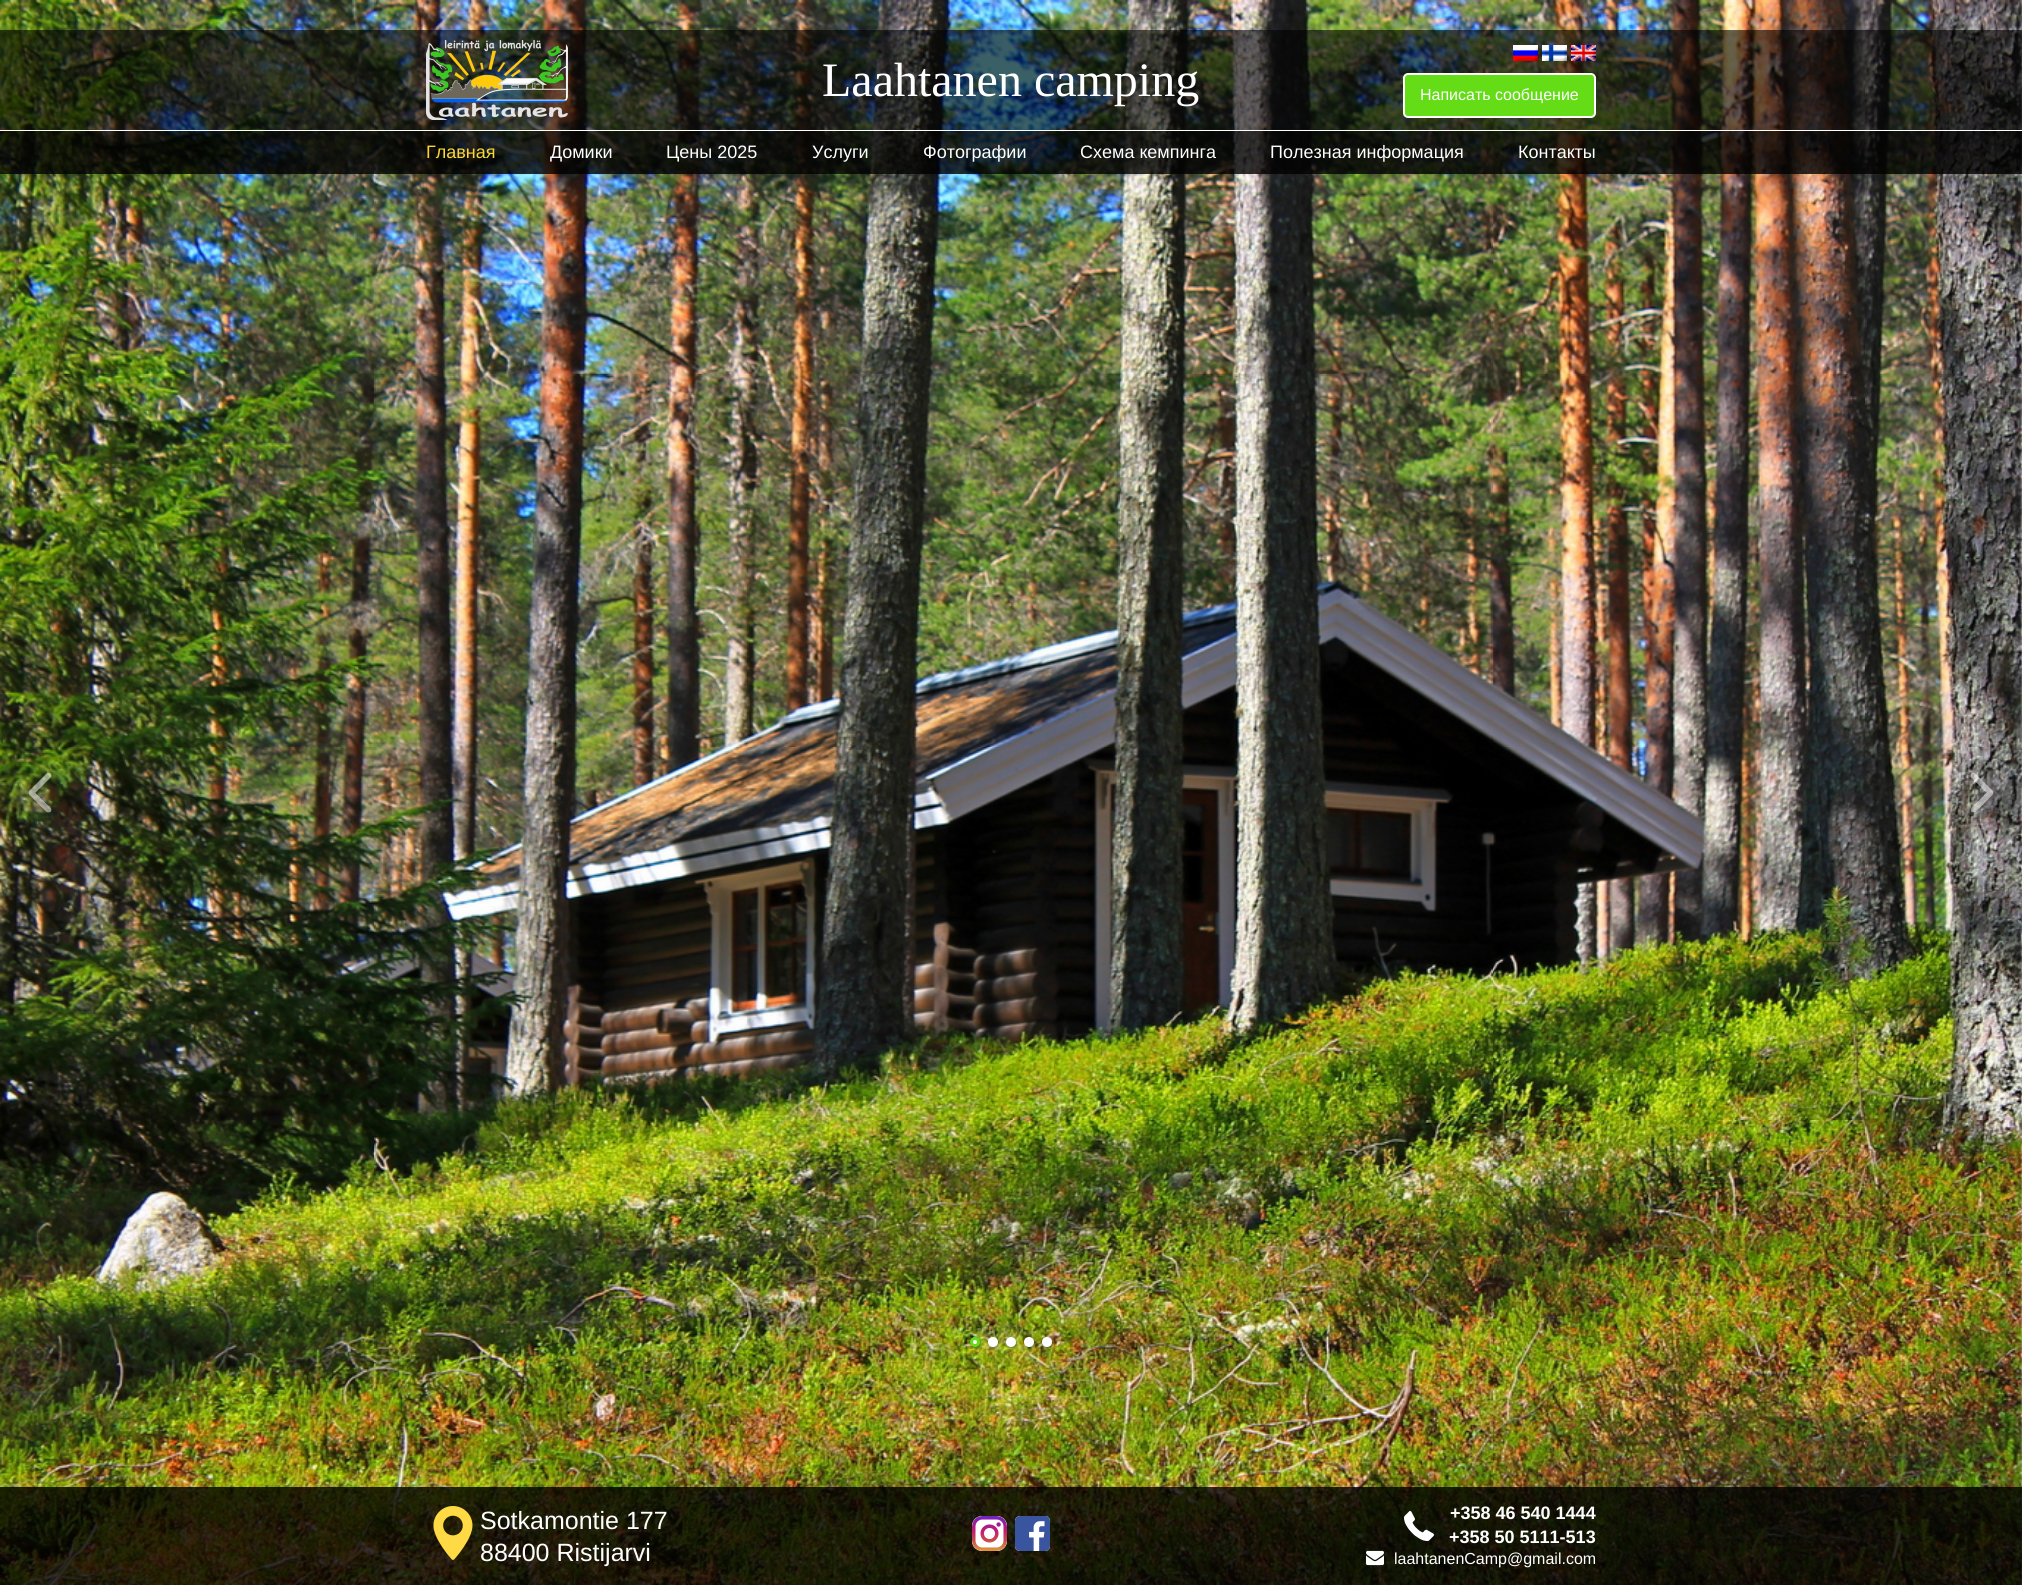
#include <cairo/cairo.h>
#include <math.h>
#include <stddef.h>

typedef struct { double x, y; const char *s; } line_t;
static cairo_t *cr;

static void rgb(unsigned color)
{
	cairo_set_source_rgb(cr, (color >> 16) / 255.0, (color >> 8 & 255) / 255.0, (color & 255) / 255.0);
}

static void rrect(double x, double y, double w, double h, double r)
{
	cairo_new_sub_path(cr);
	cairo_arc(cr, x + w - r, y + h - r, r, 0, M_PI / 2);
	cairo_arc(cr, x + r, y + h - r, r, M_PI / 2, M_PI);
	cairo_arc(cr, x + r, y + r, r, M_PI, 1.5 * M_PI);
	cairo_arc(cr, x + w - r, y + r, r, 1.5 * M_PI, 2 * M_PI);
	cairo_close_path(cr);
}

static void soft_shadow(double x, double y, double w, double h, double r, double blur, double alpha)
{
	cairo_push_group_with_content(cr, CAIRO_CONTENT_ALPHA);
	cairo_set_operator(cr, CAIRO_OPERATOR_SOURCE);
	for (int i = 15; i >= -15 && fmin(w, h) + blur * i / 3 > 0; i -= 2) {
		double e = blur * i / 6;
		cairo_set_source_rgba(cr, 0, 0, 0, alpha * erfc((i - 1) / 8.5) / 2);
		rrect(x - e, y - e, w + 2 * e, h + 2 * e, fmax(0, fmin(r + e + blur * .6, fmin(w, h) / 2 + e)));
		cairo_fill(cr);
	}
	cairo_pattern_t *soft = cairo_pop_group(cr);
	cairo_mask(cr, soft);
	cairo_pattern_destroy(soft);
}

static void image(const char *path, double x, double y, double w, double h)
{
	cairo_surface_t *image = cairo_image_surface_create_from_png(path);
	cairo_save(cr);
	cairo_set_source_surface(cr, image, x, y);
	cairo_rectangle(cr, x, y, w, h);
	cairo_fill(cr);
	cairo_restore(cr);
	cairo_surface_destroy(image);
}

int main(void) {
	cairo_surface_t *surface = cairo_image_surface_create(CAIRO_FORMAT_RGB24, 2022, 1585);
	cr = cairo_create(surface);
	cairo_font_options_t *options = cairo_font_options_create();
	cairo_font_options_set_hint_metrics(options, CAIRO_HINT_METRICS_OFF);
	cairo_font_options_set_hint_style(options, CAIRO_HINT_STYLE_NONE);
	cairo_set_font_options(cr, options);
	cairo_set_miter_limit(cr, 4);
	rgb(0xffffff);
	cairo_paint(cr);
	image("img/1.png", 0, 0, 2022, 1585);
	image("img/2.png", 28, 773, 24, 40);
	image("img/3.png", 1970, 773, 24, 40);
	rgb(0x333333);
	soft_shadow(971, 1338, 10, 10, 5, 1, 0.5);
	rgb(0xffffff);
	cairo_arc(cr, 975, 1342, 3.5, 0, 2 * M_PI);
	cairo_fill_preserve(cr);
	rgb(0x64dd17);
	cairo_set_line_width(cr, 3);
	cairo_stroke(cr);
	rgb(0x333333);
	soft_shadow(989, 1338, 10, 10, 5, 1, 0.5);
	rgb(0xffffff);
	cairo_arc(cr, 993, 1342, 5, 0, 2 * M_PI);
	cairo_fill(cr);
	rgb(0x333333);
	soft_shadow(1007, 1338, 10, 10, 5, 1, 0.5);
	rgb(0xffffff);
	cairo_arc(cr, 1011, 1342, 5, 0, 2 * M_PI);
	cairo_fill(cr);
	rgb(0x333333);
	soft_shadow(1025, 1338, 10, 10, 5, 1, 0.5);
	rgb(0xffffff);
	cairo_arc(cr, 1029, 1342, 5, 0, 2 * M_PI);
	cairo_fill(cr);
	rgb(0x333333);
	soft_shadow(1043, 1338, 10, 10, 5, 1, 0.5);
	rgb(0xffffff);
	cairo_arc(cr, 1047, 1342, 5, 0, 2 * M_PI);
	cairo_fill(cr);
	cairo_set_source_rgba(cr, 0, 0, 0, 0.6);
	cairo_rectangle(cr, 0, 30, 2022, 100);
	cairo_fill(cr);
	image("img/4.png", 426, 40, 142, 80);
	image("img/5.png", 1513, 45, 25, 16);
	image("img/6.png", 1542, 45, 25, 16);
	image("img/7.png", 1571, 45, 25, 16);
	rgb(0x64dd17);
	rrect(1404, 74, 191, 43, 4);
	cairo_fill_preserve(cr);
	rgb(0xffffff);
	cairo_set_line_width(cr, 2);
	cairo_stroke(cr);
	cairo_set_source_rgba(cr, 0, 0, 0, 0.8);
	cairo_rectangle(cr, 0, 131, 2022, 43);
	cairo_fill(cr);
	rgb(0xffffff);
	cairo_rectangle(cr, 0, 130, 2022, 1);
	cairo_fill(cr);
	cairo_set_source_rgba(cr, 0, 0, 0, 0.8);
	cairo_rectangle(cr, 0, 1487, 2022, 98);
	cairo_fill(cr);
	image("img/8.png", 433, 1506, 40, 54);
	rgb(0xffffff);
	rrect(972, 1516, 35, 35, 10);
	cairo_fill(cr);
	image("img/9.png", 972, 1516, 35, 35);
	rrect(1015, 1516, 35, 35, 5);
	cairo_fill(cr);
	image("img/10.png", 1015, 1516, 35, 35);
	image("img/11.png", 1404, 1511, 30, 30);
	image("img/12.png", 1366, 1550, 18, 16);
	cairo_select_font_face(cr, "Liberation Serif", CAIRO_FONT_SLANT_NORMAL, CAIRO_FONT_WEIGHT_NORMAL);
	cairo_set_font_size(cr, 48);
	cairo_move_to(cr, 822, 96);
	cairo_show_text(cr, "Laahtanen camping");
	cairo_select_font_face(cr, "Liberation Sans", CAIRO_FONT_SLANT_NORMAL, CAIRO_FONT_WEIGHT_NORMAL);
	cairo_set_font_size(cr, 16);
	cairo_move_to(cr, 1420, 100);
	cairo_show_text(cr, "Написать сообщение");
	cairo_set_font_size(cr, 18);
	rgb(0xfdd835);
	cairo_move_to(cr, 426, 158);
	cairo_show_text(cr, "Главная");
	rgb(0xffffff);
	{
		static const line_t items[] = {
			{550, 158, "Домики"},
			{666, 158, "Цены 2025"},
			{812, 158, "Услуги"},
			{923, 158, "Фотографии"},
			{1080, 158, "Схема кемпинга"},
			{1270, 158, "Полезная информация"},
			{1518, 158, "Контакты"},
		};
		for (size_t i = 0; i < sizeof items / sizeof *items; i++) {
			cairo_move_to(cr, items[i].x, items[i].y);
			cairo_show_text(cr, items[i].s);
		}
	}
	cairo_set_font_size(cr, 25);
	cairo_move_to(cr, 480, 1529);
	cairo_show_text(cr, "Sotkamontie 177");
	cairo_move_to(cr, 480, 1561);
	cairo_show_text(cr, "88400 Ristijarvi");
	cairo_select_font_face(cr, "Liberation Sans", CAIRO_FONT_SLANT_NORMAL, CAIRO_FONT_WEIGHT_BOLD);
	cairo_set_font_size(cr, 18);
	cairo_move_to(cr, 1450, 1519);
	cairo_show_text(cr, "+358 46 540 1444");
	cairo_move_to(cr, 1449, 1543);
	cairo_show_text(cr, "+358 50 5111-513");
	cairo_select_font_face(cr, "Liberation Sans", CAIRO_FONT_SLANT_NORMAL, CAIRO_FONT_WEIGHT_NORMAL);
	cairo_set_font_size(cr, 16);
	cairo_move_to(cr, 1394, 1564);
	cairo_show_text(cr, "laahtanenCamp@gmail.com");
	cairo_surface_write_to_png(surface, "page.png");
	cairo_font_options_destroy(options);
	cairo_destroy(cr);
	cairo_surface_destroy(surface);
	return 0;
}
